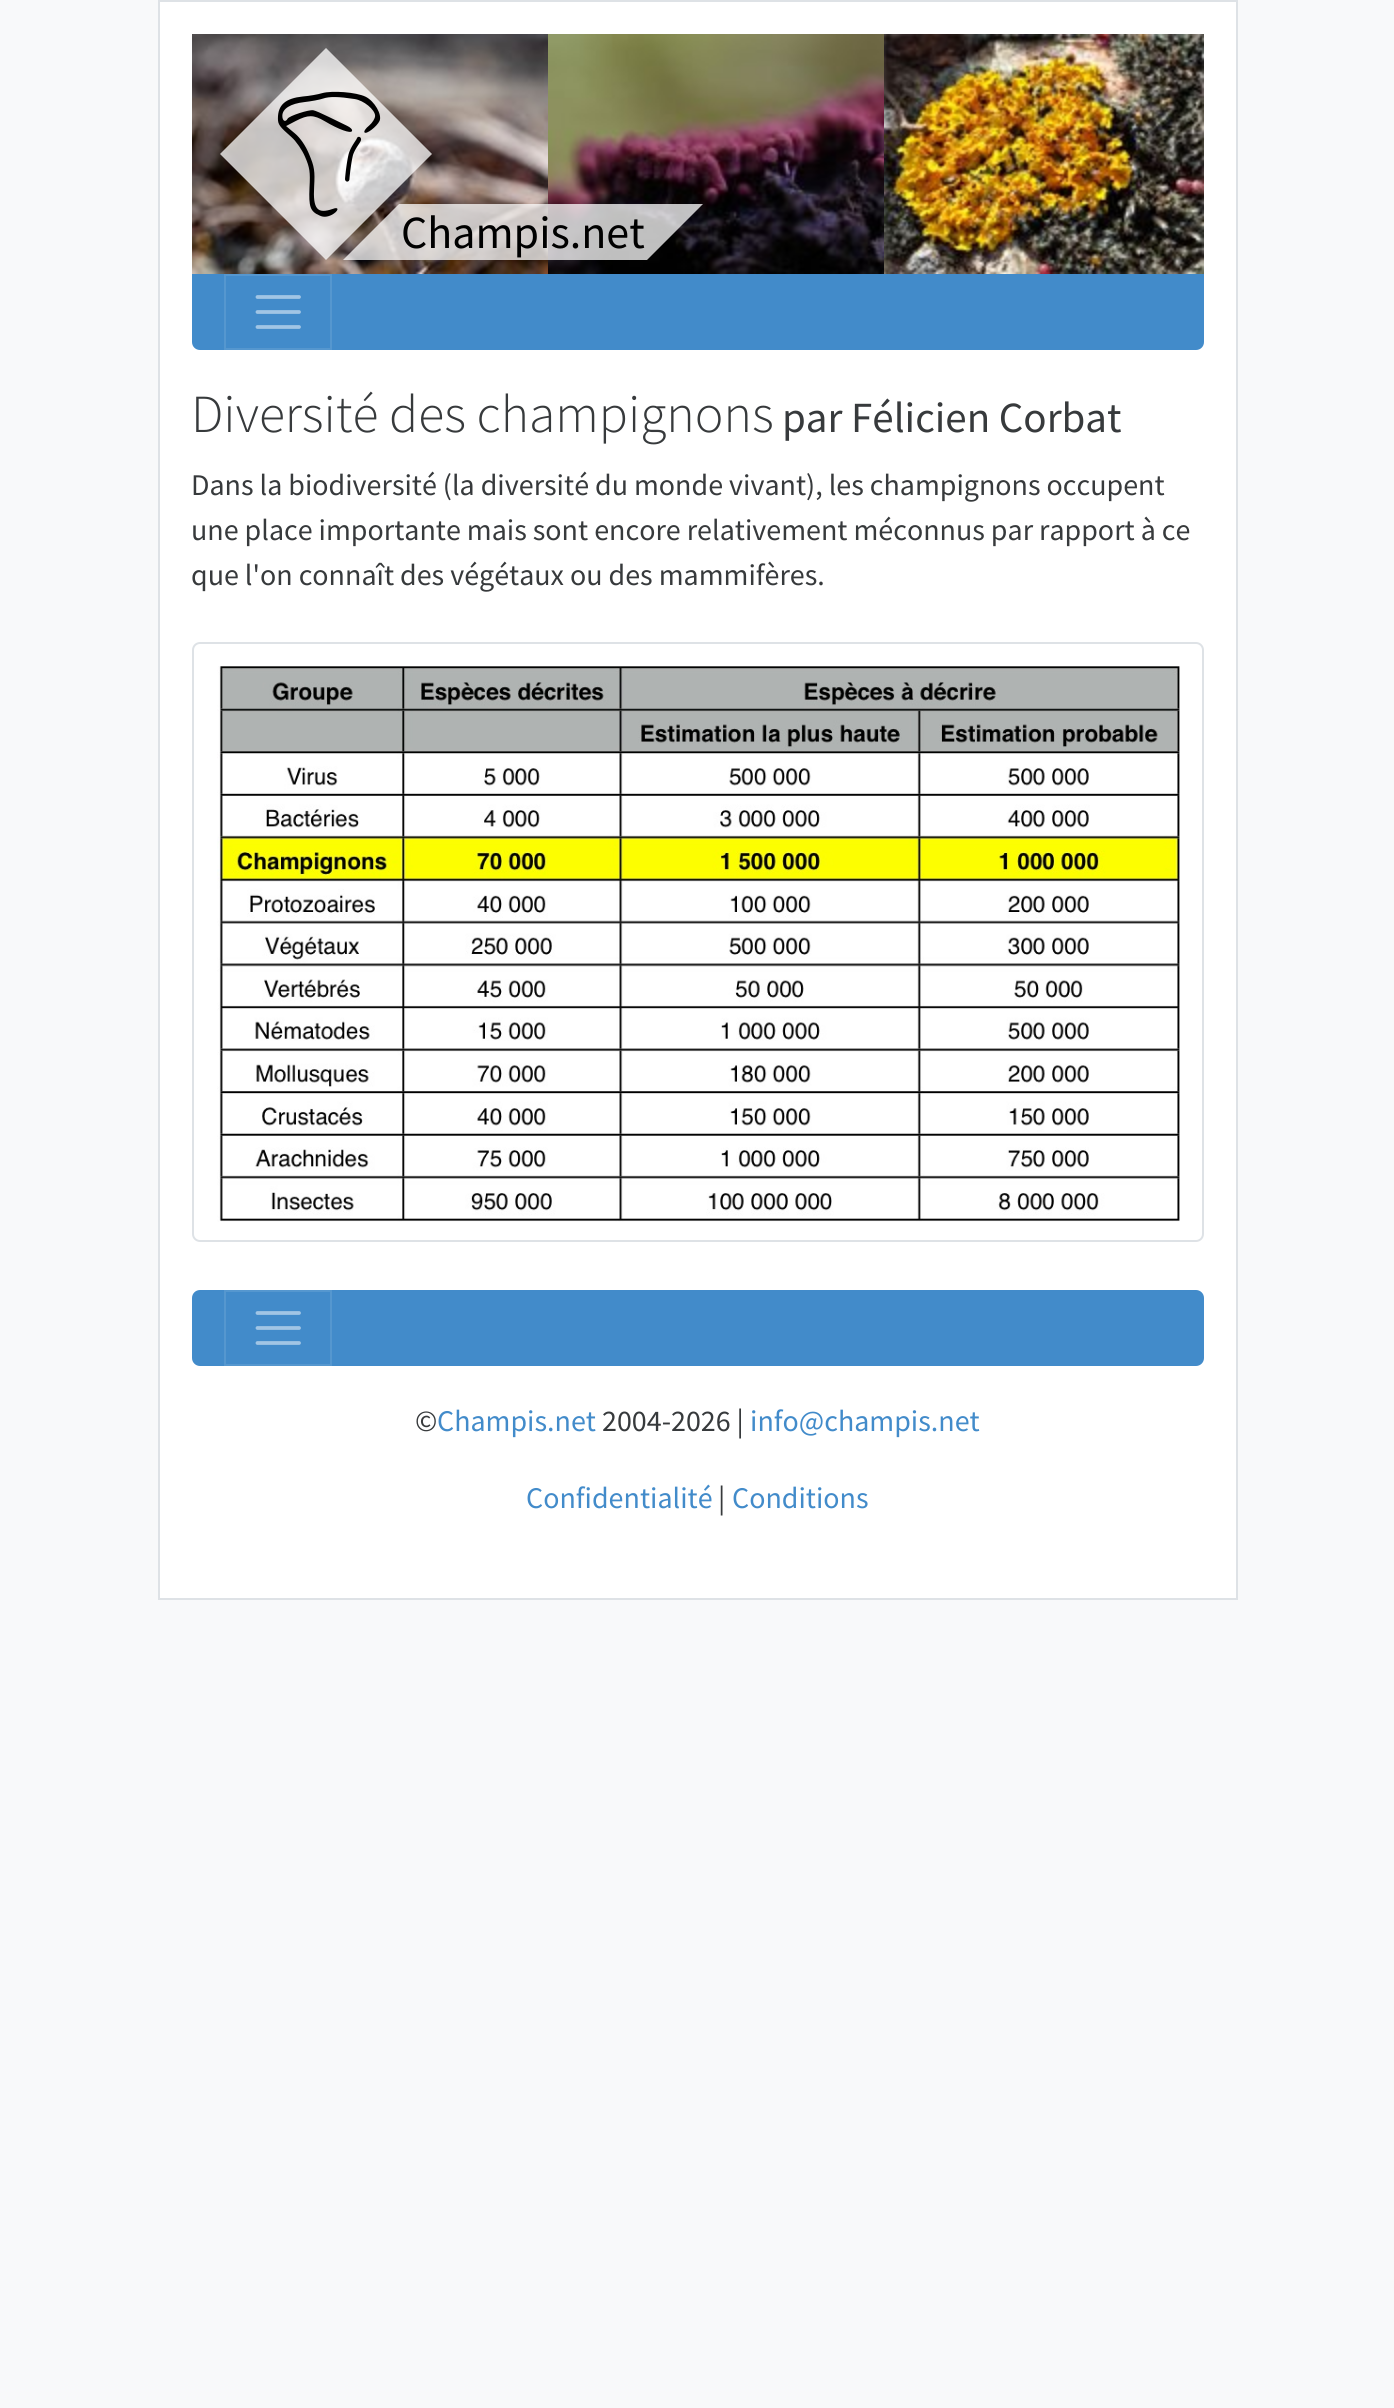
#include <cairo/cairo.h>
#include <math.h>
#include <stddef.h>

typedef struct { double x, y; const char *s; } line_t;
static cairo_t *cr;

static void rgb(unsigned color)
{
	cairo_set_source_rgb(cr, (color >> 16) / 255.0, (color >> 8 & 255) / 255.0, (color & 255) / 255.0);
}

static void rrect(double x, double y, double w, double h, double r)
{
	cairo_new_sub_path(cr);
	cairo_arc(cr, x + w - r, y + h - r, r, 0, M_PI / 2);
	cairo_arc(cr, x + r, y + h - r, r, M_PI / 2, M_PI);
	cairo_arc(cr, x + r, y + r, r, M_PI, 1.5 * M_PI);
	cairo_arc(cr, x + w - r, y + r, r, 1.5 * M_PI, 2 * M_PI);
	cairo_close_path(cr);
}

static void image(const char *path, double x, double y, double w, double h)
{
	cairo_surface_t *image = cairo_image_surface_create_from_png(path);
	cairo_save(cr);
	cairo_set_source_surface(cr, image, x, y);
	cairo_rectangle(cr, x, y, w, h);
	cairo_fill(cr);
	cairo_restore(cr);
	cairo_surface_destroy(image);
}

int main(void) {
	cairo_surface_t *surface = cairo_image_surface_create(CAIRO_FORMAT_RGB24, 1394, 2408);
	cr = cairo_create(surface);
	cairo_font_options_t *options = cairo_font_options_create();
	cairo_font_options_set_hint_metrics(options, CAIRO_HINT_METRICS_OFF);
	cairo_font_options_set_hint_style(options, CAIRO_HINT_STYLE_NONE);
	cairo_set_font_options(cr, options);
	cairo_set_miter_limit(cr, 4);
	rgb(0xf8f9fa);
	cairo_paint(cr);
	rgb(0xffffff);
	cairo_rectangle(cr, 159, 1, 1078, 1598);
	cairo_fill_preserve(cr);
	rgb(0xdee2e6);
	cairo_stroke(cr);
	image("img/2.png", 192, 34, 356, 240);
	image("img/3.png", 548, 34, 336, 240);
	image("img/4.png", 884, 34, 320, 240);
	cairo_set_source_rgba(cr, 1, 1, 1, 0.75);
	cairo_new_path(cr);
	cairo_move_to(cr, 399, 204);
	cairo_line_to(cr, 703, 204);
	cairo_line_to(cr, 647, 260);
	cairo_line_to(cr, 343, 260);
	cairo_close_path(cr);
	cairo_fill(cr);
	rgb(0x428bca);
	cairo_new_path(cr);
	cairo_move_to(cr, 192, 274);
	cairo_line_to(cr, 1204, 274);
	cairo_line_to(cr, 1204, 342);
	cairo_curve_to(cr, 1204, 346.5, 1200.5, 350, 1196, 350);
	cairo_line_to(cr, 200, 350);
	cairo_curve_to(cr, 195.5, 350, 192, 346.5, 192, 342);
	cairo_close_path(cr);
	cairo_fill(cr);
	cairo_rectangle(cr, 225, 275, 106, 74);
	rgb(0x5597cf);
	cairo_stroke(cr);
	cairo_new_path(cr);
	cairo_move_to(cr, 257.5, 297);
	cairo_line_to(cr, 299, 297);
	cairo_move_to(cr, 257.5, 312);
	cairo_line_to(cr, 299, 312);
	cairo_move_to(cr, 257.5, 327);
	cairo_line_to(cr, 299, 327);
	rgb(0xa1c5e5);
	cairo_set_line_width(cr, 3.8);
	cairo_set_line_cap(cr, CAIRO_LINE_CAP_ROUND);
	cairo_stroke(cr);
	rrect(193, 643, 1010, 598, 7);
	rgb(0xdee2e6);
	cairo_set_line_width(cr, 2);
	cairo_set_line_cap(cr, CAIRO_LINE_CAP_BUTT);
	cairo_stroke(cr);
	image("img/5.png", 217, 666, 963, 556);
	rgb(0x428bca);
	rrect(192, 1290, 1012, 76, 8);
	cairo_fill(cr);
	cairo_rectangle(cr, 225, 1291, 106, 74);
	rgb(0x5597cf);
	cairo_stroke(cr);
	cairo_new_path(cr);
	cairo_move_to(cr, 257.5, 1313);
	cairo_line_to(cr, 299, 1313);
	cairo_move_to(cr, 257.5, 1328);
	cairo_line_to(cr, 299, 1328);
	cairo_move_to(cr, 257.5, 1343);
	cairo_line_to(cr, 299, 1343);
	rgb(0xa1c5e5);
	cairo_set_line_width(cr, 3.8);
	cairo_set_line_cap(cr, CAIRO_LINE_CAP_ROUND);
	cairo_stroke(cr);
	cairo_select_font_face(cr, "Source Sans Pro", CAIRO_FONT_SLANT_NORMAL, CAIRO_FONT_WEIGHT_NORMAL);
	cairo_set_font_size(cr, 46);
	rgb(0x000000);
	cairo_move_to(cr, 401, 248);
	cairo_show_text(cr, "Champis.net");
	cairo_set_source_rgba(cr, 1, 1, 1, 0.75);
	cairo_new_path(cr);
	cairo_move_to(cr, 326, 48);
	cairo_line_to(cr, 432, 154);
	cairo_line_to(cr, 326, 260);
	cairo_line_to(cr, 220, 154);
	cairo_close_path(cr);
	cairo_fill(cr);
	image("img/1.png", 277, 91, 104, 126);
	cairo_select_font_face(cr, "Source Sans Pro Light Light", CAIRO_FONT_SLANT_NORMAL, CAIRO_FONT_WEIGHT_NORMAL);
	cairo_set_font_size(cr, 53.6);
	rgb(0x373a3c);
	cairo_move_to(cr, 191, 432);
	cairo_show_text(cr, "Diversité des champignons");
	cairo_select_font_face(cr, "Source Sans Pro", CAIRO_FONT_SLANT_NORMAL, CAIRO_FONT_WEIGHT_NORMAL);
	cairo_set_font_size(cr, 43);
	cairo_move_to(cr, 782, 432);
	cairo_show_text(cr, "par Félicien Corbat");
	cairo_set_font_size(cr, 30);
	{
		static const line_t items[] = {
			{191, 495, "Dans la biodiversité (la diversité du monde vivant), les champignons occupent"},
			{191, 540, "une place importante mais sont encore relativement méconnus par rapport à ce"},
			{191, 585, "que l'on connaît des végétaux ou des mammifères."},
			{415, 1431, "©"},
		};
		for (size_t i = 0; i < sizeof items / sizeof *items; i++) {
			cairo_move_to(cr, items[i].x, items[i].y);
			cairo_show_text(cr, items[i].s);
		}
	}
	rgb(0x428bca);
	cairo_move_to(cr, 437, 1431);
	cairo_show_text(cr, "Champis.net");
	rgb(0x373a3c);
	cairo_move_to(cr, 602, 1431);
	cairo_show_text(cr, "2004-2026 |");
	rgb(0x428bca);
	cairo_move_to(cr, 750, 1431);
	cairo_show_text(cr, "info@champis.net");
	cairo_move_to(cr, 526, 1508);
	cairo_show_text(cr, "Confidentialité");
	rgb(0x373a3c);
	cairo_move_to(cr, 718, 1508);
	cairo_show_text(cr, "|");
	rgb(0x428bca);
	cairo_move_to(cr, 732, 1508);
	cairo_show_text(cr, "Conditions");
	cairo_surface_write_to_png(surface, "page.png");
	cairo_font_options_destroy(options);
	cairo_destroy(cr);
	cairo_surface_destroy(surface);
	return 0;
}
